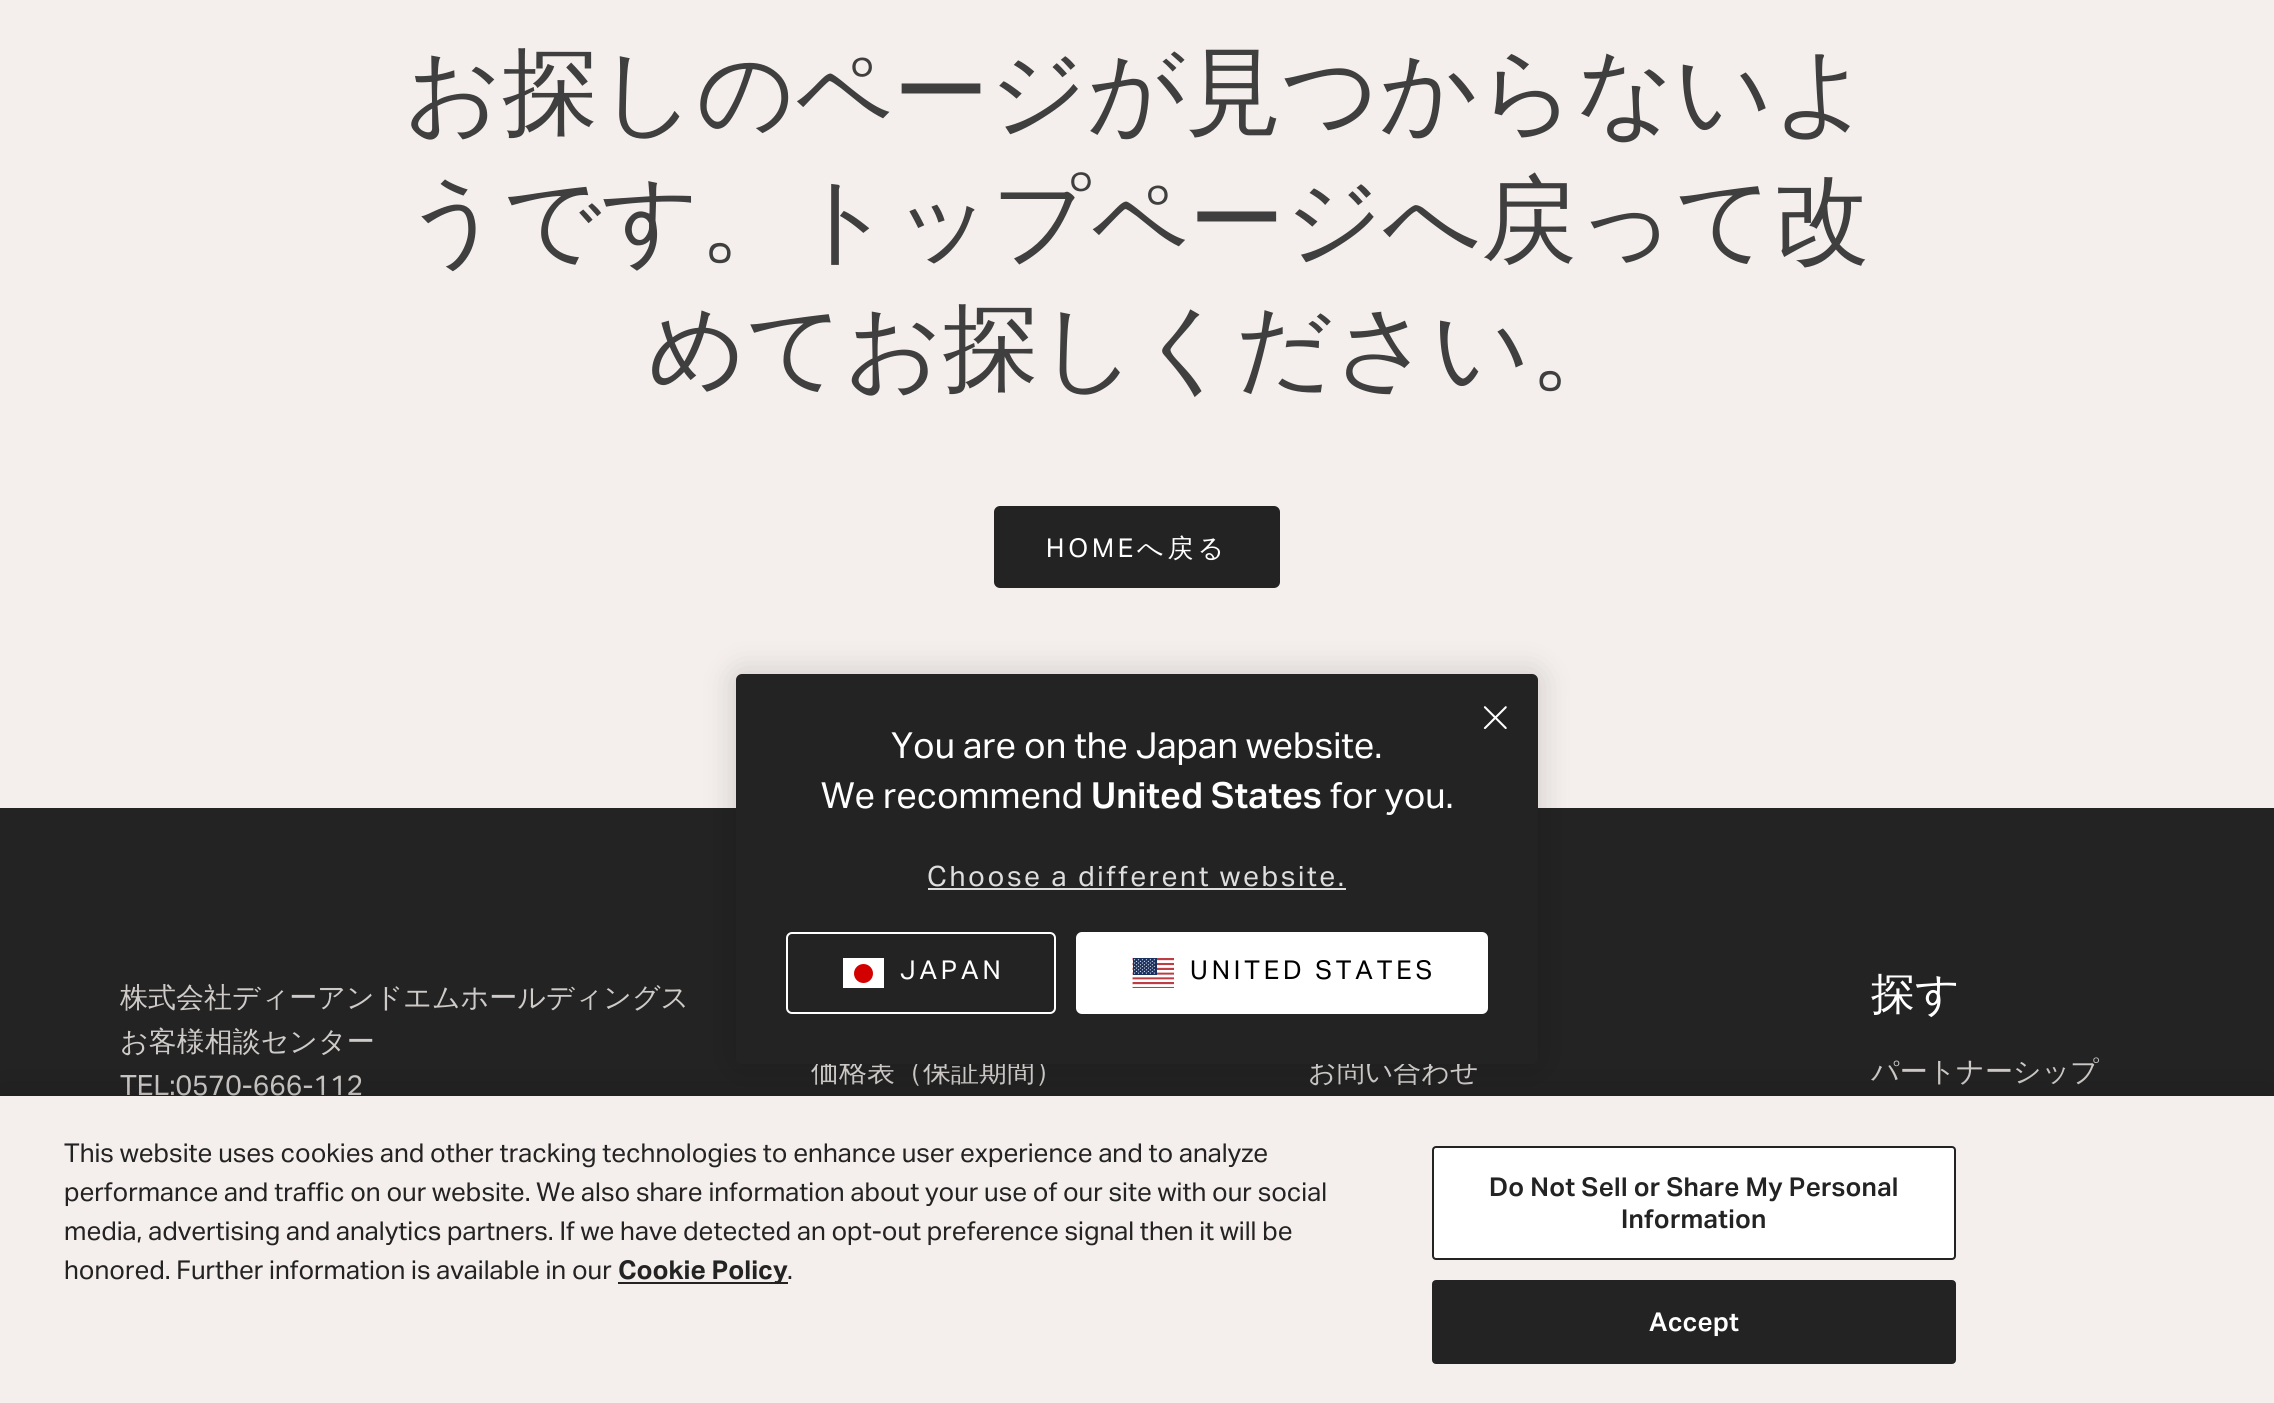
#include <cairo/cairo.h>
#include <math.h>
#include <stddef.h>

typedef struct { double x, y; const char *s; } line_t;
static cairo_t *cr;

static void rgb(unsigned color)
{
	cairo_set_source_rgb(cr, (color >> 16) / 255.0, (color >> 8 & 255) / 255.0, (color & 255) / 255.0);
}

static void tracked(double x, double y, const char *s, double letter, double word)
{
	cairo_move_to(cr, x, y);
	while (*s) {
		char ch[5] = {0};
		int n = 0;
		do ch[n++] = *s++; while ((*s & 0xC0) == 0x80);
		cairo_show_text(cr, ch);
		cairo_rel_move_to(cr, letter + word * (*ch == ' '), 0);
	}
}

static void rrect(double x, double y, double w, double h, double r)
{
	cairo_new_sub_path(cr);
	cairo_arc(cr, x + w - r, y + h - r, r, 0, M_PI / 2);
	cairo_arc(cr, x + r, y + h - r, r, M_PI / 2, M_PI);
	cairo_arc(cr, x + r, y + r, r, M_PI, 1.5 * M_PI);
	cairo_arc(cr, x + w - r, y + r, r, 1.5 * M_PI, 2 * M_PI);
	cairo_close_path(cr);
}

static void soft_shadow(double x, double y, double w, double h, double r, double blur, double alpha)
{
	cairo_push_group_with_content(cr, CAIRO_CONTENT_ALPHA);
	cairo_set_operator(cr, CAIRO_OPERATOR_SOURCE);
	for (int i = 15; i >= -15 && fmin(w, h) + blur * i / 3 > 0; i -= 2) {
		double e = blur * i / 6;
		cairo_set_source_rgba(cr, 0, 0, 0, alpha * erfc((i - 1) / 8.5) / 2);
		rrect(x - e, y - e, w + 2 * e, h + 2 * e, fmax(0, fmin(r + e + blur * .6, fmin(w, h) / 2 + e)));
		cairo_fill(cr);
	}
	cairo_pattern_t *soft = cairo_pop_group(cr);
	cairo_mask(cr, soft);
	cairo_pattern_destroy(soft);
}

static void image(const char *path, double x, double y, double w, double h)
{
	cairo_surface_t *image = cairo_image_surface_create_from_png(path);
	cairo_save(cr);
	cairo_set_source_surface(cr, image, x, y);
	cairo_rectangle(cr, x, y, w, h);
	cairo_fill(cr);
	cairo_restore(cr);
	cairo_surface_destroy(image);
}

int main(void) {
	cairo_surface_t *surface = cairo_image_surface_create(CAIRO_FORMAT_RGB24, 2274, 1403);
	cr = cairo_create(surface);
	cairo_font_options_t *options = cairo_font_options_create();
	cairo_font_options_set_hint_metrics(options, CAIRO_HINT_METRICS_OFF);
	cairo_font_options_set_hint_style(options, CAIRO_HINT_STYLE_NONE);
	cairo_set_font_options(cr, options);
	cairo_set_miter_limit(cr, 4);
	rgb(0xf4efec);
	cairo_paint(cr);
	rgb(0x242323);
	rrect(995, 507, 284, 80, 5);
	cairo_fill_preserve(cr);
	cairo_stroke(cr);
	cairo_rectangle(cr, 0, 808, 2274, 288);
	cairo_fill(cr);
	rgb(0x000000);
	soft_shadow(730, 668, 814, 402, 12, 15, 0.12);
	cairo_select_font_face(cr, "WenQuanYi Zen Hei Medium", CAIRO_FONT_SLANT_NORMAL, CAIRO_FONT_WEIGHT_NORMAL);
	cairo_set_font_size(cr, 96);
	rgb(0x403f3f);
	{
		static const line_t items[] = {
			{404, 125, "お探しのページが見つからないよ"},
			{405, 253, "うです。トップページへ戻って改"},
			{648, 381, "めてお探しください。"},
		};
		for (size_t i = 0; i < sizeof items / sizeof *items; i++) {
			cairo_move_to(cr, items[i].x, items[i].y);
			cairo_show_text(cr, items[i].s);
		}
	}
	cairo_select_font_face(cr, "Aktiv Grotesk", CAIRO_FONT_SLANT_NORMAL, CAIRO_FONT_WEIGHT_NORMAL);
	cairo_set_font_size(cr, 26);
	rgb(0xffffff);
	tracked(1046, 557, "HOME", 3.9, 0);
	cairo_select_font_face(cr, "WenQuanYi Zen Hei Medium", CAIRO_FONT_SLANT_NORMAL, CAIRO_FONT_WEIGHT_NORMAL);
	tracked(1137, 557, "へ戻る", 3.9, 0);
	cairo_set_font_size(cr, 28);
	rgb(0xcdcac8);
	cairo_move_to(cr, 120, 1007);
	cairo_show_text(cr, "株式会社ディーアンドエムホールディングス");
	cairo_move_to(cr, 120, 1051);
	cairo_show_text(cr, "お客様相談センター");
	cairo_select_font_face(cr, "Aktiv Grotesk", CAIRO_FONT_SLANT_NORMAL, CAIRO_FONT_WEIGHT_NORMAL);
	cairo_move_to(cr, 120, 1095);
	cairo_show_text(cr, "TEL:0570-666-112");
	cairo_select_font_face(cr, "WenQuanYi Zen Hei Medium", CAIRO_FONT_SLANT_NORMAL, CAIRO_FONT_WEIGHT_NORMAL);
	cairo_move_to(cr, 811, 1081);
	cairo_show_text(cr, "価格表（保証期間）");
	cairo_move_to(cr, 1308, 1081);
	cairo_show_text(cr, "お問い合わせ");
	rgb(0x242323);
	rrect(736, 674, 802, 390, 6);
	cairo_fill(cr);
	rgb(0xffffff);
	rrect(1077, 933, 410, 80, 5);
	cairo_fill_preserve(cr);
	cairo_stroke(cr);
	image("img/2.png", 1132, 958, 42, 30);
	cairo_select_font_face(cr, "Aktiv Grotesk", CAIRO_FONT_SLANT_NORMAL, CAIRO_FONT_WEIGHT_NORMAL);
	cairo_set_font_size(cr, 26);
	rgb(0x000000);
	tracked(1190, 979, "UNITED STATES", 3.9, 0);
	rrect(787, 933, 268, 80, 5);
	rgb(0xffffff);
	cairo_stroke(cr);
	cairo_rectangle(cr, 843, 958, 41, 30);
	cairo_fill(cr);
	rgb(0xd30000);
	cairo_arc(cr, 863.5, 973.5, 9.5, 0, 2 * M_PI);
	cairo_fill(cr);
	image("img/1.png", 1483, 706, 24, 23);
	cairo_set_font_size(cr, 28);
	rgb(0xdedede);
	tracked(927, 886, "Choose a different website.", 2.6, 0);
	cairo_rectangle(cr, 928, 888, 418, 2);
	cairo_fill(cr);
	cairo_set_font_size(cr, 26);
	rgb(0xffffff);
	tracked(900, 979, "JAPAN", 3.9, 0);
	cairo_set_font_size(cr, 36);
	cairo_move_to(cr, 1330, 808);
	cairo_show_text(cr, "for you.");
	cairo_select_font_face(cr, "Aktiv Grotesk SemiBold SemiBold", CAIRO_FONT_SLANT_NORMAL, CAIRO_FONT_WEIGHT_NORMAL);
	cairo_move_to(cr, 1091, 808);
	cairo_show_text(cr, "United States");
	cairo_select_font_face(cr, "Aktiv Grotesk", CAIRO_FONT_SLANT_NORMAL, CAIRO_FONT_WEIGHT_NORMAL);
	cairo_move_to(cr, 821, 808);
	cairo_show_text(cr, "We recommend");
	cairo_move_to(cr, 891, 758);
	cairo_show_text(cr, "You are on the Japan website.");
	cairo_select_font_face(cr, "WenQuanYi Zen Hei Medium", CAIRO_FONT_SLANT_NORMAL, CAIRO_FONT_WEIGHT_NORMAL);
	cairo_set_font_size(cr, 44);
	cairo_move_to(cr, 1871, 1009);
	cairo_show_text(cr, "探す");
	cairo_set_font_size(cr, 28);
	rgb(0xcdcac8);
	cairo_move_to(cr, 1871, 1081);
	cairo_show_text(cr, "パートナーシップ");
	rgb(0x000000);
	soft_shadow(0, 1096, 2274, 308, 0, 18, 0.2);
	rgb(0xf4efec);
	cairo_rectangle(cr, 0, 1096, 2274, 307);
	cairo_fill(cr);
	cairo_select_font_face(cr, "Aktiv Grotesk", CAIRO_FONT_SLANT_NORMAL, CAIRO_FONT_WEIGHT_NORMAL);
	cairo_set_font_size(cr, 26);
	rgb(0x242323);
	{
		static const line_t items[] = {
			{64, 1162, "This website uses cookies and other tracking technologies to enhance user experience and to analyze"},
			{64, 1201, "performance and traffic on our website. We also share information about your use of our site with our social"},
			{64, 1240, "media, advertising and analytics partners. If we have detected an opt-out preference signal then it will be"},
			{64, 1279, "honored. Further information is available in our"},
		};
		for (size_t i = 0; i < sizeof items / sizeof *items; i++) {
			cairo_move_to(cr, items[i].x, items[i].y);
			cairo_show_text(cr, items[i].s);
		}
	}
	cairo_rectangle(cr, 618, 1282, 170, 2);
	cairo_fill(cr);
	cairo_select_font_face(cr, "Aktiv Grotesk", CAIRO_FONT_SLANT_NORMAL, CAIRO_FONT_WEIGHT_BOLD);
	cairo_move_to(cr, 618, 1279);
	cairo_show_text(cr, "Cookie Policy");
	cairo_select_font_face(cr, "Aktiv Grotesk", CAIRO_FONT_SLANT_NORMAL, CAIRO_FONT_WEIGHT_NORMAL);
	cairo_move_to(cr, 787, 1279);
	cairo_show_text(cr, ".");
	rgb(0xffffff);
	rrect(1433, 1147, 522, 112, 3);
	cairo_fill_preserve(cr);
	rgb(0x242323);
	cairo_stroke(cr);
	cairo_select_font_face(cr, "Aktiv Grotesk SemiBold SemiBold", CAIRO_FONT_SLANT_NORMAL, CAIRO_FONT_WEIGHT_NORMAL);
	tracked(1489, 1196, "Do Not Sell or Share My Personal", 0.25, 0);
	tracked(1621, 1228, "Information", 0.25, 0);
	rrect(1433, 1281, 522, 82, 3);
	cairo_fill_preserve(cr);
	cairo_stroke(cr);
	rgb(0xffffff);
	tracked(1649, 1331, "Accept", 0.25, 0);
	cairo_surface_write_to_png(surface, "page.png");
	cairo_font_options_destroy(options);
	cairo_destroy(cr);
	cairo_surface_destroy(surface);
	return 0;
}
